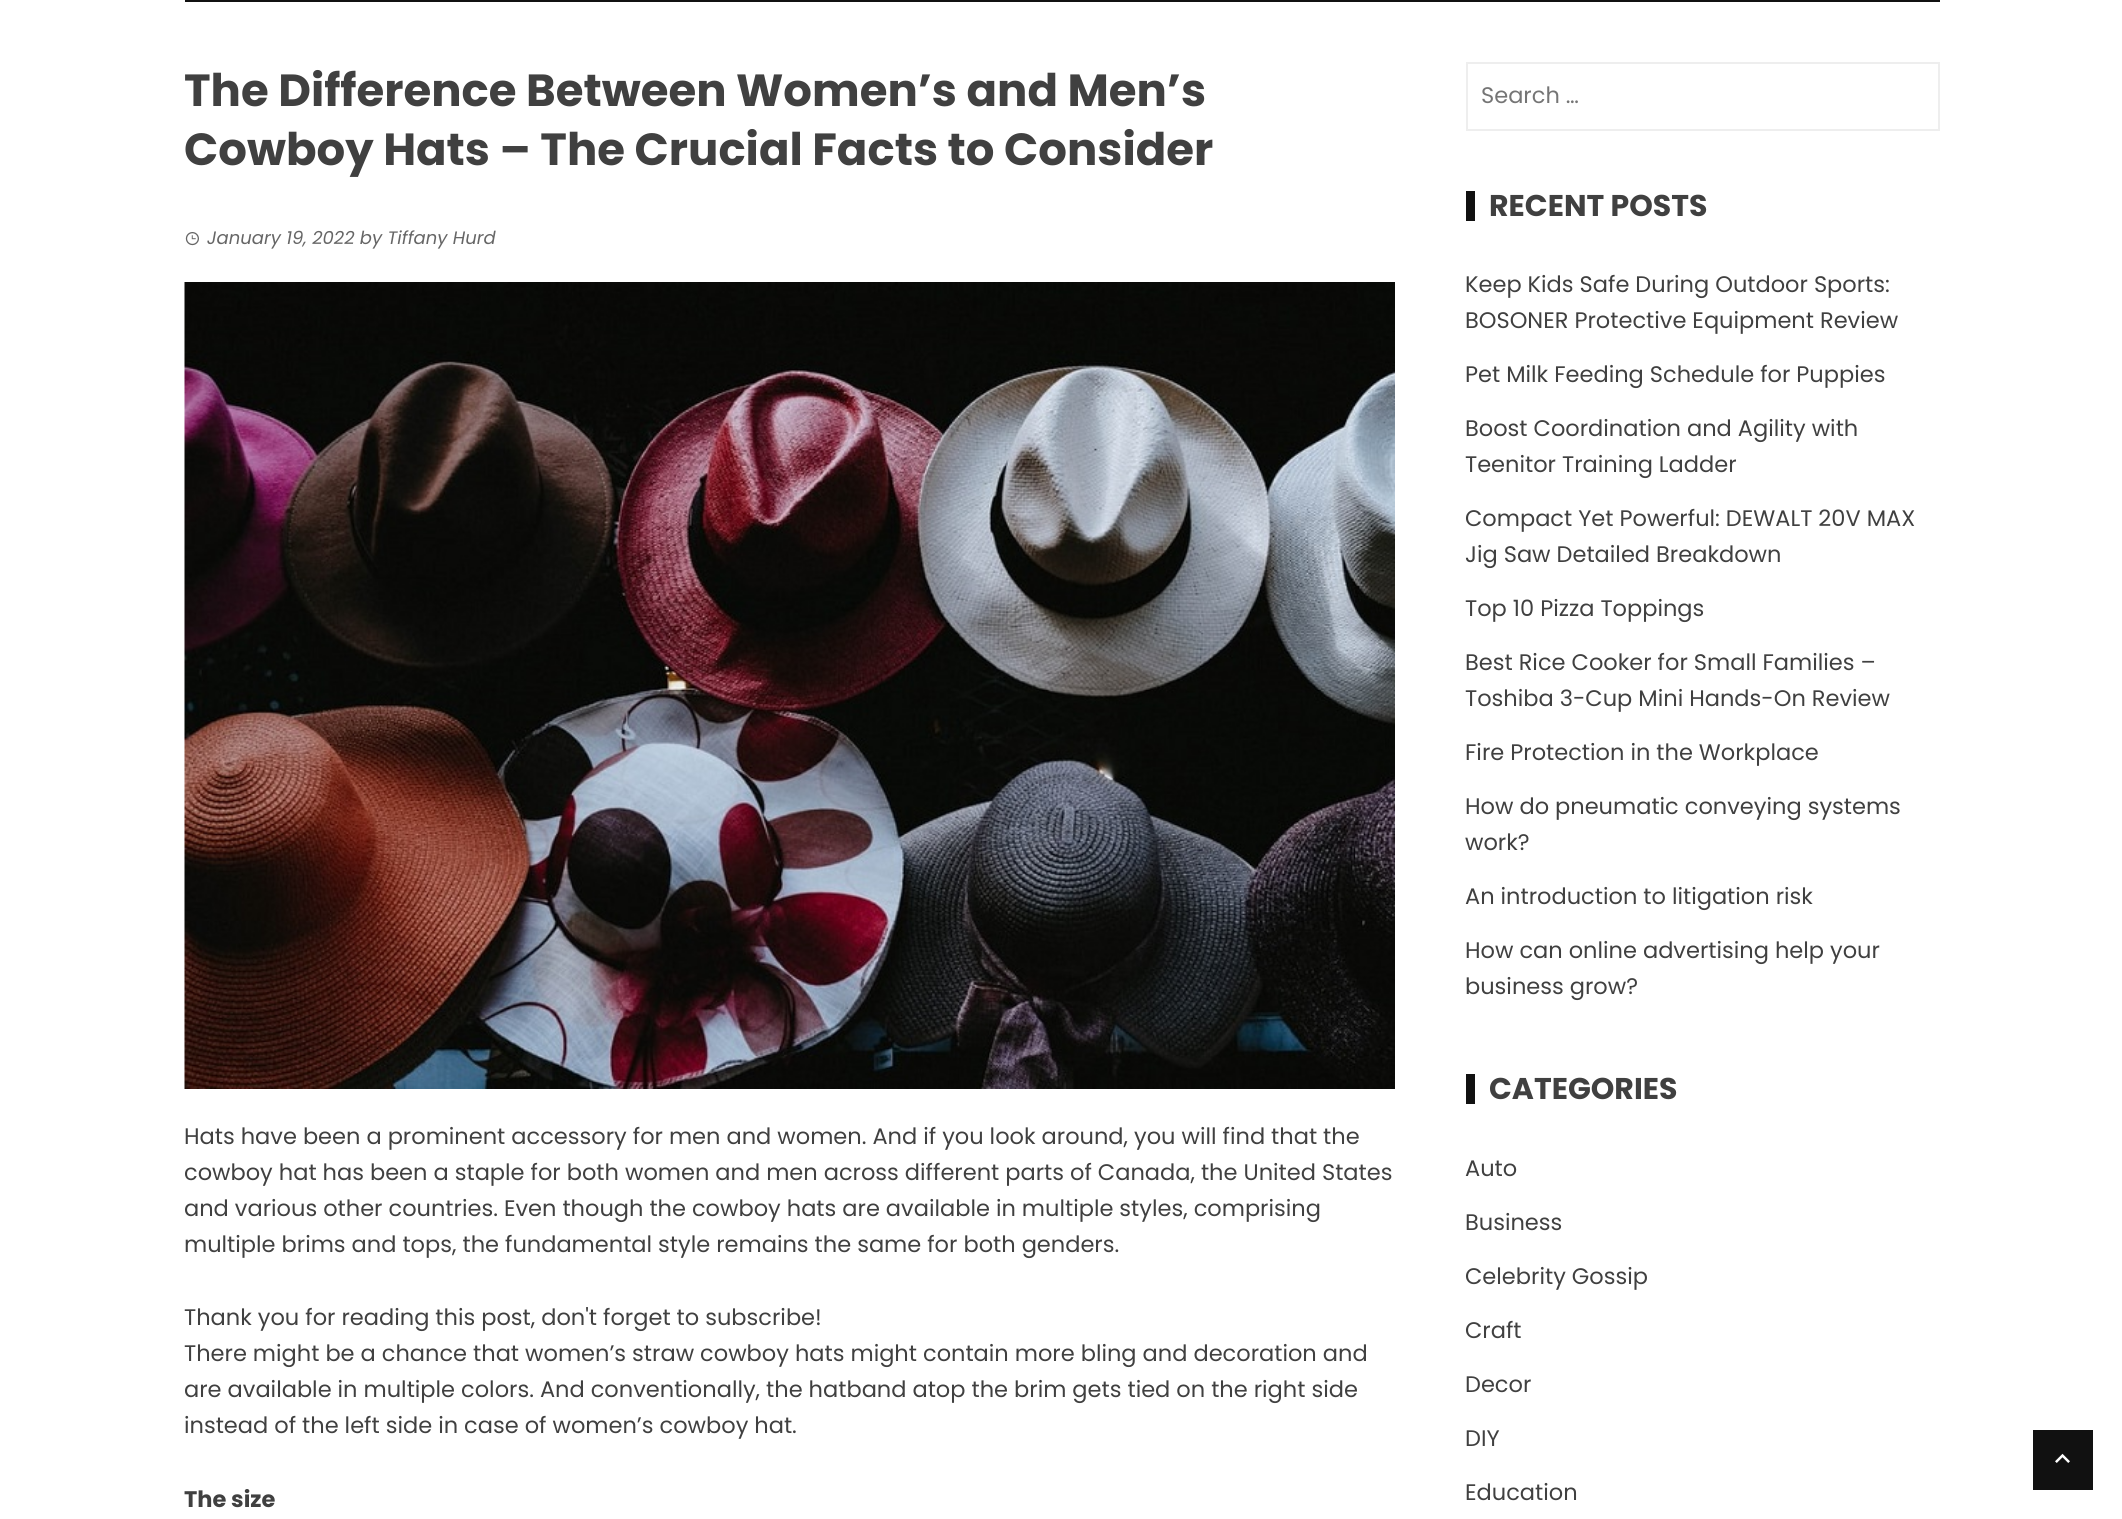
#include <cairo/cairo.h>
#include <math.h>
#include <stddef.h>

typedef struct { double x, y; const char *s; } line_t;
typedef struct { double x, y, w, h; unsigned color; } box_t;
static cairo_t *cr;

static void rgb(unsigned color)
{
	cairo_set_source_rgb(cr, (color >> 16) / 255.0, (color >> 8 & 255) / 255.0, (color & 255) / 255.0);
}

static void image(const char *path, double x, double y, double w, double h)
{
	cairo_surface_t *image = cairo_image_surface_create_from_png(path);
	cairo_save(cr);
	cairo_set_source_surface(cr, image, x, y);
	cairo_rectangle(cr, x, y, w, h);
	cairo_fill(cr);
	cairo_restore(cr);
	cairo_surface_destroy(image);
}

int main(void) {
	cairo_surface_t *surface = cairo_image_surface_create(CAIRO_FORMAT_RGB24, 2122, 1519);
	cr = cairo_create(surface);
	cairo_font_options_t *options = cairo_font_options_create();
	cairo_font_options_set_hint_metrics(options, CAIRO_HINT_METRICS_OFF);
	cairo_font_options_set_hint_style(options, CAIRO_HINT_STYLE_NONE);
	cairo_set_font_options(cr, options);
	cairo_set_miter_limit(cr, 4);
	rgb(0xffffff);
	cairo_paint(cr);
	rgb(0x111111);
	cairo_rectangle(cr, 185, 0, 1755, 2);
	cairo_fill(cr);
	image("img/1.png", 185, 232, 14, 14);
	image("img/2.png", 184, 282, 1211, 807);
	cairo_rectangle(cr, 1467, 63, 472, 67);
	rgb(0xeeeeee);
	cairo_stroke(cr);
	{
		static const box_t items[] = {
			{1466, 191, 9, 30, 0x111111},
			{1466, 1074, 9, 30, 0x111111},
			{2033, 1430, 60, 60, 0x111111},
		};
		for (size_t i = 0; i < sizeof items / sizeof *items; i++) {
			rgb(items[i].color);
			cairo_rectangle(cr, items[i].x, items[i].y, items[i].w, items[i].h);
			cairo_fill(cr);
		}
	}
	image("img/3.png", 2055, 1453, 15, 10);
	cairo_select_font_face(cr, "Poppins", CAIRO_FONT_SLANT_NORMAL, CAIRO_FONT_WEIGHT_BOLD);
	cairo_set_font_size(cr, 45);
	rgb(0x404040);
	cairo_move_to(cr, 184, 106);
	cairo_show_text(cr, "The Difference Between Women’s and Men’s");
	cairo_move_to(cr, 184, 165);
	cairo_show_text(cr, "Cowboy Hats – The Crucial Facts to Consider");
	cairo_select_font_face(cr, "Poppins", CAIRO_FONT_SLANT_ITALIC, CAIRO_FONT_WEIGHT_NORMAL);
	cairo_set_font_size(cr, 18);
	rgb(0x666666);
	cairo_move_to(cr, 207, 244);
	cairo_show_text(cr, "January 19, 2022 by Tiffany Hurd");
	cairo_select_font_face(cr, "Poppins", CAIRO_FONT_SLANT_NORMAL, CAIRO_FONT_WEIGHT_NORMAL);
	cairo_set_font_size(cr, 22.5);
	rgb(0x404040);
	{
		static const line_t items[] = {
			{184, 1144, "Hats have been a prominent accessory for men and women. And if you look around, you will find that the"},
			{184, 1180, "cowboy hat has been a staple for both women and men across different parts of Canada, the United States"},
			{184, 1216, "and various other countries. Even though the cowboy hats are available in multiple styles, comprising"},
			{184, 1252, "multiple brims and tops, the fundamental style remains the same for both genders."},
			{184, 1325, "Thank you for reading this post, don't forget to subscribe!"},
			{184, 1361, "There might be a chance that women’s straw cowboy hats might contain more bling and decoration and"},
			{184, 1397, "are available in multiple colors. And conventionally, the hatband atop the brim gets tied on the right side"},
			{184, 1433, "instead of the left side in case of women’s cowboy hat."},
		};
		for (size_t i = 0; i < sizeof items / sizeof *items; i++) {
			cairo_move_to(cr, items[i].x, items[i].y);
			cairo_show_text(cr, items[i].s);
		}
	}
	cairo_select_font_face(cr, "Poppins", CAIRO_FONT_SLANT_NORMAL, CAIRO_FONT_WEIGHT_BOLD);
	cairo_move_to(cr, 184, 1507);
	cairo_show_text(cr, "The size");
	cairo_select_font_face(cr, "Poppins", CAIRO_FONT_SLANT_NORMAL, CAIRO_FONT_WEIGHT_NORMAL);
	rgb(0x757575);
	cairo_move_to(cr, 1481, 103);
	cairo_show_text(cr, "Search …");
	cairo_select_font_face(cr, "Poppins", CAIRO_FONT_SLANT_NORMAL, CAIRO_FONT_WEIGHT_BOLD);
	cairo_set_font_size(cr, 30);
	rgb(0x404040);
	cairo_move_to(cr, 1489, 216);
	cairo_show_text(cr, "RECENT POSTS");
	cairo_select_font_face(cr, "Poppins", CAIRO_FONT_SLANT_NORMAL, CAIRO_FONT_WEIGHT_NORMAL);
	cairo_set_font_size(cr, 22.5);
	{
		static const line_t items[] = {
			{1465, 292, "Keep Kids Safe During Outdoor Sports:"},
			{1465, 328, "BOSONER Protective Equipment Review"},
			{1465, 382, "Pet Milk Feeding Schedule for Puppies"},
			{1465, 436, "Boost Coordination and Agility with"},
			{1465, 472, "Teenitor Training Ladder"},
			{1465, 526, "Compact Yet Powerful: DEWALT 20V MAX"},
			{1465, 562, "Jig Saw Detailed Breakdown"},
			{1465, 616, "Top 10 Pizza Toppings"},
			{1465, 670, "Best Rice Cooker for Small Families –"},
			{1465, 706, "Toshiba 3-Cup Mini Hands-On Review"},
			{1465, 760, "Fire Protection in the Workplace"},
			{1465, 814, "How do pneumatic conveying systems"},
			{1465, 850, "work?"},
			{1465, 904, "An introduction to litigation risk"},
			{1465, 958, "How can online advertising help your"},
			{1465, 994, "business grow?"},
		};
		for (size_t i = 0; i < sizeof items / sizeof *items; i++) {
			cairo_move_to(cr, items[i].x, items[i].y);
			cairo_show_text(cr, items[i].s);
		}
	}
	cairo_select_font_face(cr, "Poppins", CAIRO_FONT_SLANT_NORMAL, CAIRO_FONT_WEIGHT_BOLD);
	cairo_set_font_size(cr, 30);
	cairo_move_to(cr, 1489, 1099);
	cairo_show_text(cr, "CATEGORIES");
	cairo_select_font_face(cr, "Poppins", CAIRO_FONT_SLANT_NORMAL, CAIRO_FONT_WEIGHT_NORMAL);
	cairo_set_font_size(cr, 22.5);
	{
		static const line_t items[] = {
			{1465, 1176, "Auto"},
			{1465, 1230, "Business"},
			{1465, 1284, "Celebrity Gossip"},
			{1465, 1338, "Craft"},
			{1465, 1392, "Decor"},
			{1465, 1446, "DIY"},
			{1465, 1500, "Education"},
		};
		for (size_t i = 0; i < sizeof items / sizeof *items; i++) {
			cairo_move_to(cr, items[i].x, items[i].y);
			cairo_show_text(cr, items[i].s);
		}
	}
	cairo_surface_write_to_png(surface, "page.png");
	cairo_font_options_destroy(options);
	cairo_destroy(cr);
	cairo_surface_destroy(surface);
	return 0;
}
